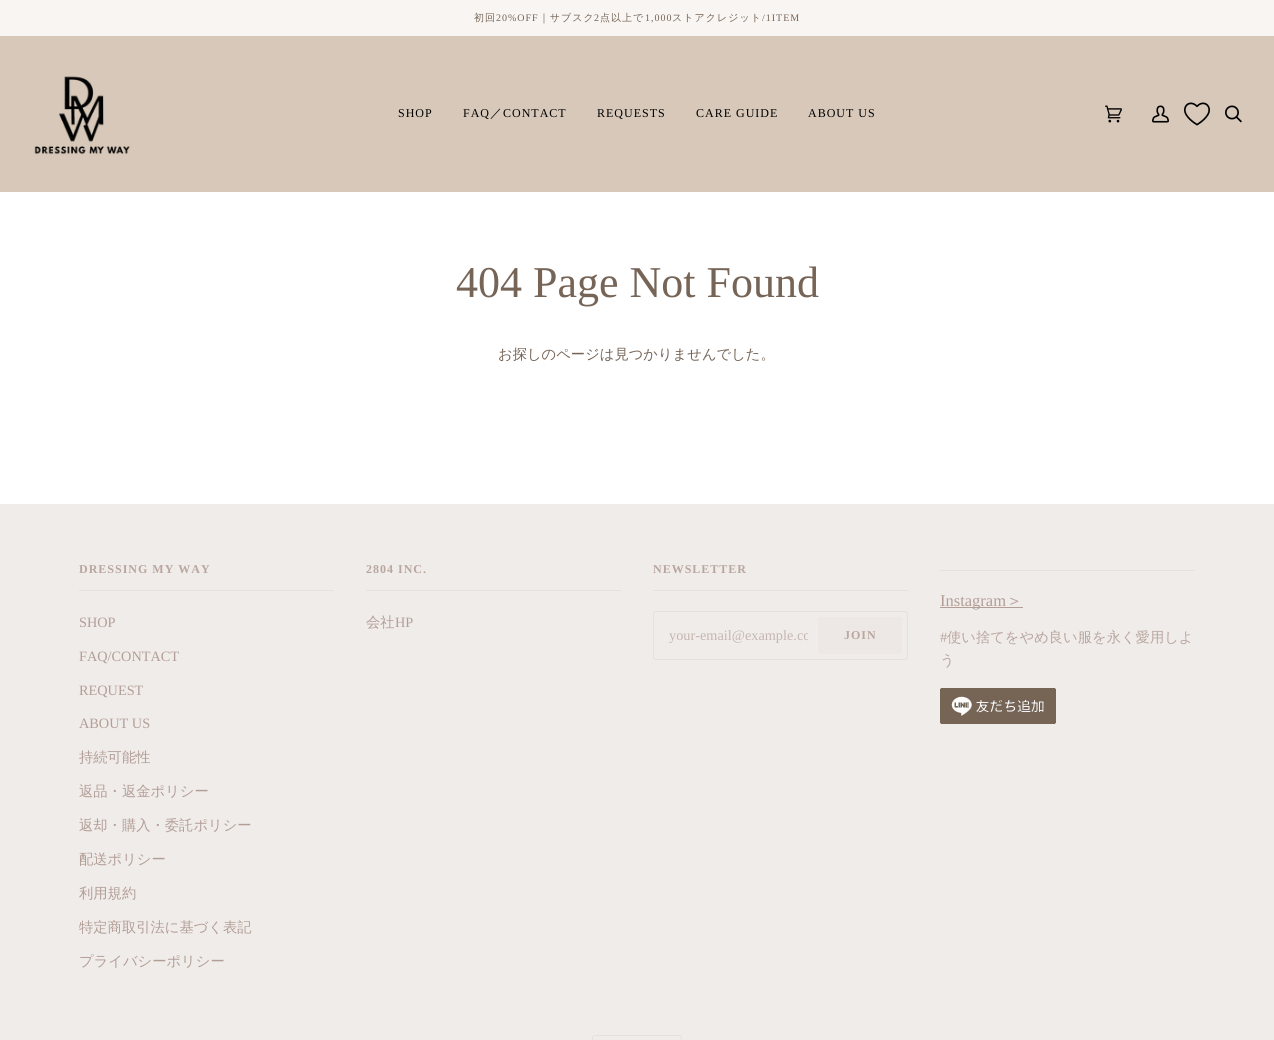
#include <cairo/cairo.h>
#include <math.h>
#include <stddef.h>

typedef struct { double x, y; const char *s; } line_t;
typedef struct { double x, y, w, h; unsigned color; } box_t;
static cairo_t *cr;

static void rgb(unsigned color)
{
	cairo_set_source_rgb(cr, (color >> 16) / 255.0, (color >> 8 & 255) / 255.0, (color & 255) / 255.0);
}

static void tracked(double x, double y, const char *s, double letter, double word)
{
	cairo_move_to(cr, x, y);
	while (*s) {
		char ch[5] = {0};
		int n = 0;
		do ch[n++] = *s++; while ((*s & 0xC0) == 0x80);
		cairo_show_text(cr, ch);
		cairo_rel_move_to(cr, letter + word * (*ch == ' '), 0);
	}
}

static void rrect(double x, double y, double w, double h, double r)
{
	cairo_new_sub_path(cr);
	cairo_arc(cr, x + w - r, y + h - r, r, 0, M_PI / 2);
	cairo_arc(cr, x + r, y + h - r, r, M_PI / 2, M_PI);
	cairo_arc(cr, x + r, y + r, r, M_PI, 1.5 * M_PI);
	cairo_arc(cr, x + w - r, y + r, r, 1.5 * M_PI, 2 * M_PI);
	cairo_close_path(cr);
}

static void image(const char *path, double x, double y, double w, double h)
{
	cairo_surface_t *image = cairo_image_surface_create_from_png(path);
	cairo_save(cr);
	cairo_set_source_surface(cr, image, x, y);
	cairo_rectangle(cr, x, y, w, h);
	cairo_fill(cr);
	cairo_restore(cr);
	cairo_surface_destroy(image);
}

int main(void) {
	cairo_surface_t *surface = cairo_image_surface_create(CAIRO_FORMAT_RGB24, 1274, 1040);
	cr = cairo_create(surface);
	cairo_font_options_t *options = cairo_font_options_create();
	cairo_font_options_set_hint_metrics(options, CAIRO_HINT_METRICS_OFF);
	cairo_font_options_set_hint_style(options, CAIRO_HINT_STYLE_NONE);
	cairo_set_font_options(cr, options);
	cairo_set_miter_limit(cr, 4);
	rgb(0xffffff);
	cairo_paint(cr);
	rgb(0xf8f5f2);
	cairo_rectangle(cr, 0, 0, 1274, 36);
	cairo_fill(cr);
	rgb(0xd7c8b9);
	cairo_rectangle(cr, 0, 36, 1274, 156);
	cairo_fill(cr);
	image("img/1.png", 34, 76, 96, 79);
	image("img/2.png", 1105, 105, 17, 18);
	image("img/3.png", 1152, 105, 17, 18);
	image("img/4.png", 1184, 102, 26, 24);
	image("img/5.png", 1225, 105, 17, 18);
	{
		static const box_t items[] = {
			{0, 504, 1274, 536, 0xf0ecea},
			{79, 590, 255, 1, 0xe7e0de},
			{366, 590, 255, 1, 0xe7e0de},
			{653, 590, 255, 1, 0xe7e0de},
		};
		for (size_t i = 0; i < sizeof items / sizeof *items; i++) {
			rgb(items[i].color);
			cairo_rectangle(cr, items[i].x, items[i].y, items[i].w, items[i].h);
			cairo_fill(cr);
		}
	}
	rrect(653.5, 611.5, 254, 48, 2.5);
	cairo_set_line_width(cr, 1);
	cairo_stroke(cr);
	rgb(0xede8e6);
	rrect(818, 617, 84, 37, 3);
	cairo_fill(cr);
	rgb(0xe7e0de);
	cairo_rectangle(cr, 940, 570, 255, 1);
	cairo_fill(cr);
	rgb(0xb39e97);
	cairo_rectangle(cr, 940, 607, 83, 1);
	cairo_fill(cr);
	image("img/6.png", 940, 688, 116, 36);
	rrect(592.5, 1035.5, 89, 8, 2.5);
	rgb(0xe7e0de);
	cairo_stroke(cr);
	cairo_select_font_face(cr, "WenQuanYi Zen Hei Medium", CAIRO_FONT_SLANT_NORMAL, CAIRO_FONT_WEIGHT_NORMAL);
	cairo_set_font_size(cr, 10);
	rgb(0x766456);
	tracked(474, 21, "初回", 1, 0);
	cairo_select_font_face(cr, "Liberation Serif", CAIRO_FONT_SLANT_NORMAL, CAIRO_FONT_WEIGHT_NORMAL);
	tracked(496, 21, "20%OFF", 1, 0);
	cairo_select_font_face(cr, "WenQuanYi Zen Hei Medium", CAIRO_FONT_SLANT_NORMAL, CAIRO_FONT_WEIGHT_NORMAL);
	tracked(539, 21, "｜サブスク", 1, 0);
	cairo_select_font_face(cr, "Liberation Serif", CAIRO_FONT_SLANT_NORMAL, CAIRO_FONT_WEIGHT_NORMAL);
	tracked(594, 21, "2", 1, 0);
	cairo_select_font_face(cr, "WenQuanYi Zen Hei Medium", CAIRO_FONT_SLANT_NORMAL, CAIRO_FONT_WEIGHT_NORMAL);
	tracked(600, 21, "点以上で", 1, 0);
	cairo_select_font_face(cr, "Liberation Serif", CAIRO_FONT_SLANT_NORMAL, CAIRO_FONT_WEIGHT_NORMAL);
	tracked(645, 21, "1,000", 1, 0);
	cairo_select_font_face(cr, "WenQuanYi Zen Hei Medium", CAIRO_FONT_SLANT_NORMAL, CAIRO_FONT_WEIGHT_NORMAL);
	tracked(672, 21, "ストアクレジット", 1, 0);
	cairo_select_font_face(cr, "Liberation Serif", CAIRO_FONT_SLANT_NORMAL, CAIRO_FONT_WEIGHT_NORMAL);
	tracked(762, 21, "/1ITEM", 1, 0);
	cairo_set_font_size(cr, 12);
	rgb(0x000000);
	tracked(398, 117, "SHOP", 1, 0);
	tracked(463, 117, "FAQ", 1, 0);
	cairo_select_font_face(cr, "WenQuanYi Zen Hei Medium", CAIRO_FONT_SLANT_NORMAL, CAIRO_FONT_WEIGHT_NORMAL);
	tracked(490, 117, "／", 1, 0);
	cairo_select_font_face(cr, "Liberation Serif", CAIRO_FONT_SLANT_NORMAL, CAIRO_FONT_WEIGHT_NORMAL);
	{
		static const line_t items[] = {
			{503, 117, "CONTACT"},
			{597, 117, "REQUESTS"},
			{696, 117, "CARE GUIDE"},
			{808, 117, "ABOUT US"},
		};
		for (size_t i = 0; i < sizeof items / sizeof *items; i++) {
			tracked(items[i].x, items[i].y, items[i].s, 1, 0);
		}
	}
	cairo_set_font_size(cr, 44);
	rgb(0x766456);
	cairo_move_to(cr, 456, 297);
	cairo_show_text(cr, "404 Page Not Found");
	cairo_select_font_face(cr, "WenQuanYi Zen Hei Medium", CAIRO_FONT_SLANT_NORMAL, CAIRO_FONT_WEIGHT_NORMAL);
	cairo_set_font_size(cr, 14.3);
	cairo_move_to(cr, 498, 359);
	cairo_show_text(cr, "お探しのページは見つかりませんでした。");
	cairo_select_font_face(cr, "Liberation Serif", CAIRO_FONT_SLANT_NORMAL, CAIRO_FONT_WEIGHT_BOLD);
	cairo_set_font_size(cr, 12);
	rgb(0xb9a69f);
	tracked(79, 573, "DRESSING MY WAY", 1, 0);
	cairo_select_font_face(cr, "Liberation Serif", CAIRO_FONT_SLANT_NORMAL, CAIRO_FONT_WEIGHT_NORMAL);
	cairo_set_font_size(cr, 14.3);
	rgb(0xb39e97);
	{
		static const line_t items[] = {
			{79, 627, "SHOP"},
			{79, 661, "FAQ/CONTACT"},
			{79, 695, "REQUEST"},
			{79, 728, "ABOUT US"},
		};
		for (size_t i = 0; i < sizeof items / sizeof *items; i++) {
			cairo_move_to(cr, items[i].x, items[i].y);
			cairo_show_text(cr, items[i].s);
		}
	}
	cairo_select_font_face(cr, "WenQuanYi Zen Hei Medium", CAIRO_FONT_SLANT_NORMAL, CAIRO_FONT_WEIGHT_NORMAL);
	{
		static const line_t items[] = {
			{79, 762, "持続可能性"},
			{79, 796, "返品・返金ポリシー"},
			{79, 830, "返却・購入・委託ポリシー"},
			{79, 864, "配送ポリシー"},
			{79, 898, "利用規約"},
			{79, 932, "特定商取引法に基づく表記"},
			{79, 966, "プライバシーポリシー"},
		};
		for (size_t i = 0; i < sizeof items / sizeof *items; i++) {
			cairo_move_to(cr, items[i].x, items[i].y);
			cairo_show_text(cr, items[i].s);
		}
	}
	cairo_select_font_face(cr, "Liberation Serif", CAIRO_FONT_SLANT_NORMAL, CAIRO_FONT_WEIGHT_BOLD);
	cairo_set_font_size(cr, 12);
	rgb(0xb9a69f);
	tracked(366, 573, "2804 INC.", 1, 0);
	cairo_select_font_face(cr, "WenQuanYi Zen Hei Medium", CAIRO_FONT_SLANT_NORMAL, CAIRO_FONT_WEIGHT_NORMAL);
	cairo_set_font_size(cr, 14.3);
	rgb(0xb39e97);
	cairo_move_to(cr, 366, 627);
	cairo_show_text(cr, "会社");
	cairo_select_font_face(cr, "Liberation Serif", CAIRO_FONT_SLANT_NORMAL, CAIRO_FONT_WEIGHT_NORMAL);
	cairo_move_to(cr, 395, 627);
	cairo_show_text(cr, "HP");
	cairo_select_font_face(cr, "Liberation Serif", CAIRO_FONT_SLANT_NORMAL, CAIRO_FONT_WEIGHT_BOLD);
	cairo_set_font_size(cr, 12);
	rgb(0xb9a69f);
	tracked(653, 573, "NEWSLETTER", 1, 0);
	cairo_save(cr);
	cairo_rectangle(cr, 669, 627, 139, 17);
	cairo_clip(cr);
	cairo_select_font_face(cr, "Liberation Serif", CAIRO_FONT_SLANT_NORMAL, CAIRO_FONT_WEIGHT_NORMAL);
	cairo_set_font_size(cr, 14.3);
	rgb(0xc5b5b0);
	cairo_move_to(cr, 669, 640);
	cairo_show_text(cr, "your-email@example.co");
	cairo_restore(cr);
	tracked(844, 639, "JOIN", 1, 0);
	cairo_select_font_face(cr, "Liberation Serif", CAIRO_FONT_SLANT_NORMAL, CAIRO_FONT_WEIGHT_NORMAL);
	cairo_set_font_size(cr, 16.5);
	rgb(0xb39e97);
	cairo_move_to(cr, 940, 606);
	cairo_show_text(cr, "Instagram");
	cairo_select_font_face(cr, "WenQuanYi Zen Hei Medium", CAIRO_FONT_SLANT_NORMAL, CAIRO_FONT_WEIGHT_NORMAL);
	cairo_move_to(cr, 1006, 606);
	cairo_show_text(cr, "＞");
	cairo_select_font_face(cr, "Liberation Serif", CAIRO_FONT_SLANT_NORMAL, CAIRO_FONT_WEIGHT_NORMAL);
	cairo_set_font_size(cr, 14.3);
	rgb(0xb9a69f);
	cairo_move_to(cr, 940, 642);
	cairo_show_text(cr, "#");
	cairo_select_font_face(cr, "WenQuanYi Zen Hei Medium", CAIRO_FONT_SLANT_NORMAL, CAIRO_FONT_WEIGHT_NORMAL);
	cairo_move_to(cr, 947, 642);
	cairo_show_text(cr, "使い捨てをやめ良い服を永く愛用しよ");
	cairo_move_to(cr, 940, 665);
	cairo_show_text(cr, "う");
	cairo_surface_write_to_png(surface, "page.png");
	cairo_font_options_destroy(options);
	cairo_destroy(cr);
	cairo_surface_destroy(surface);
	return 0;
}
